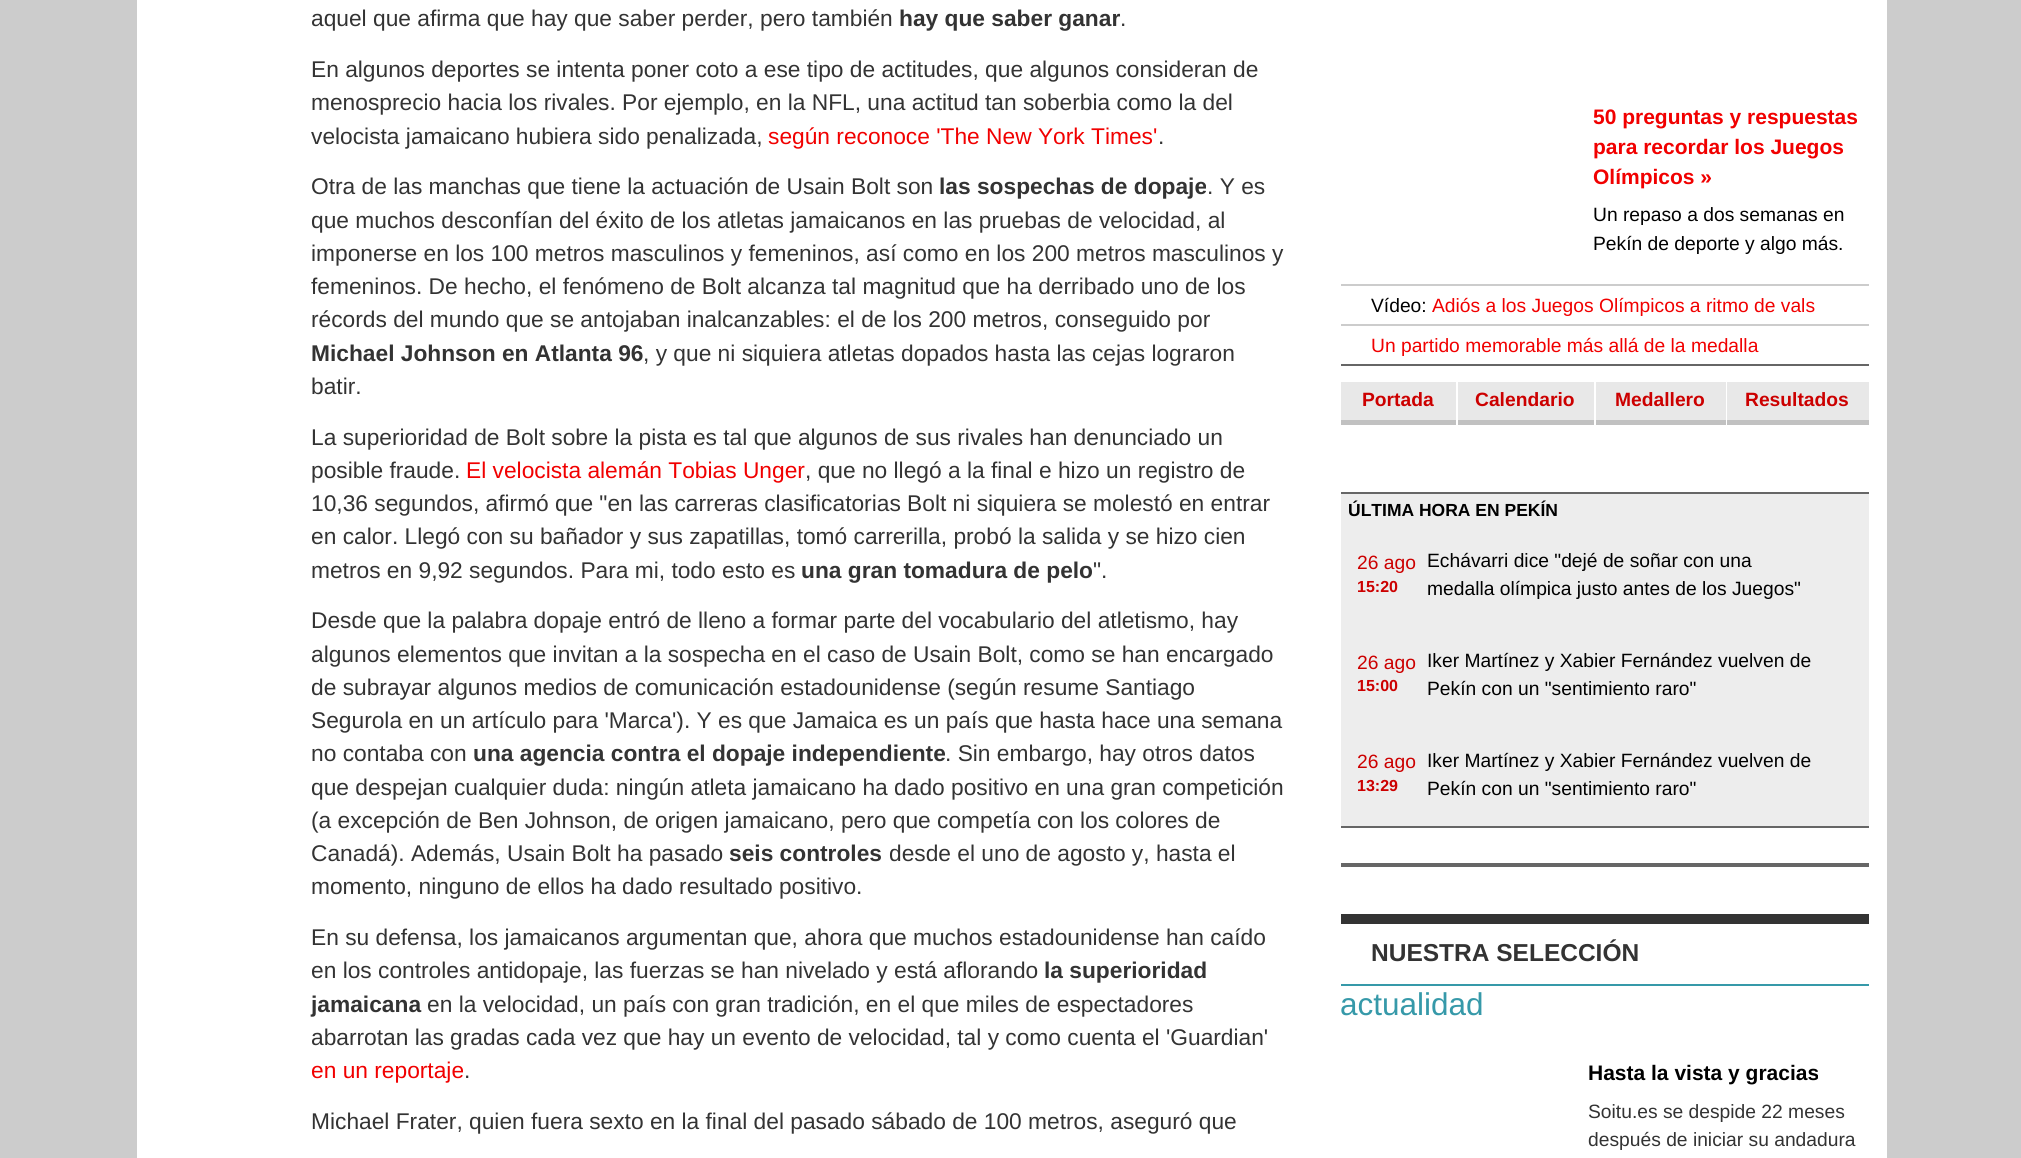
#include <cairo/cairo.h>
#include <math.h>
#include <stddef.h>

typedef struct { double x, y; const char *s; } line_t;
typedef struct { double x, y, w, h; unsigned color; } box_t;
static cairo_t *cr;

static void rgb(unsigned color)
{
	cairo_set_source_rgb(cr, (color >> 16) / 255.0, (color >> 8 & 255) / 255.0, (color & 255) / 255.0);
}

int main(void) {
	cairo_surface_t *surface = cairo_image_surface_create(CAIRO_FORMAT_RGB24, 2021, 1158);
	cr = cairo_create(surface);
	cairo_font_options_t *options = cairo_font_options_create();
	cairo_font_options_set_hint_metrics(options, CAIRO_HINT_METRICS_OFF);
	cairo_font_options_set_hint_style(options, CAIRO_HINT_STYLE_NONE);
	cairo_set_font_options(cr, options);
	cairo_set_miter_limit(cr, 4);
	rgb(0xcccccc);
	cairo_paint(cr);
	{
		static const box_t items[] = {
			{137, 0, 1750, 1158, 0xffffff},
			{1341, 863, 528, 4, 0x666666},
			{1341, 284, 528, 2, 0xcccccc},
			{1341, 324, 528, 2, 0xcccccc},
			{1341, 364, 528, 2, 0x666666},
			{1341, 382, 115, 38, 0xe8e8e8},
			{1341, 420, 115, 5, 0xc1c1c1},
			{1458, 382, 136, 38, 0xe8e8e8},
			{1458, 420, 136, 5, 0xc1c1c1},
			{1596, 382, 130, 38, 0xe8e8e8},
			{1596, 420, 130, 5, 0xc1c1c1},
			{1727, 382, 142, 38, 0xe8e8e8},
			{1727, 420, 142, 5, 0xc1c1c1},
			{1341, 826, 528, 2, 0x666666},
			{1341, 492, 528, 2, 0x666666},
			{1341, 494, 528, 332, 0xededed},
			{1341, 914, 528, 10, 0x333333},
			{1341, 984, 528, 2, 0x3699a9},
		};
		for (size_t i = 0; i < sizeof items / sizeof *items; i++) {
			rgb(items[i].color);
			cairo_rectangle(cr, items[i].x, items[i].y, items[i].w, items[i].h);
			cairo_fill(cr);
		}
	}
	cairo_select_font_face(cr, "Liberation Sans", CAIRO_FONT_SLANT_NORMAL, CAIRO_FONT_WEIGHT_NORMAL);
	cairo_set_font_size(cr, 22.75);
	rgb(0x333333);
	cairo_move_to(cr, 311, 26);
	cairo_show_text(cr, "aquel que afirma que hay que saber perder, pero también");
	cairo_select_font_face(cr, "Liberation Sans", CAIRO_FONT_SLANT_NORMAL, CAIRO_FONT_WEIGHT_BOLD);
	cairo_move_to(cr, 899, 26);
	cairo_show_text(cr, "hay que saber ganar");
	cairo_select_font_face(cr, "Liberation Sans", CAIRO_FONT_SLANT_NORMAL, CAIRO_FONT_WEIGHT_NORMAL);
	{
		static const line_t items[] = {
			{1120, 26, "."},
			{311, 77, "En algunos deportes se intenta poner coto a ese tipo de actitudes, que algunos consideran de"},
			{311, 110, "menosprecio hacia los rivales. Por ejemplo, en la NFL, una actitud tan soberbia como la del"},
			{311, 144, "velocista jamaicano hubiera sido penalizada,"},
		};
		for (size_t i = 0; i < sizeof items / sizeof *items; i++) {
			cairo_move_to(cr, items[i].x, items[i].y);
			cairo_show_text(cr, items[i].s);
		}
	}
	rgb(0xf10000);
	cairo_move_to(cr, 768, 144);
	cairo_show_text(cr, "según reconoce 'The New York Times'");
	rgb(0x333333);
	cairo_move_to(cr, 1158, 144);
	cairo_show_text(cr, ".");
	cairo_move_to(cr, 311, 194);
	cairo_show_text(cr, "Otra de las manchas que tiene la actuación de Usain Bolt son");
	cairo_select_font_face(cr, "Liberation Sans", CAIRO_FONT_SLANT_NORMAL, CAIRO_FONT_WEIGHT_BOLD);
	cairo_move_to(cr, 939, 194);
	cairo_show_text(cr, "las sospechas de dopaje");
	cairo_select_font_face(cr, "Liberation Sans", CAIRO_FONT_SLANT_NORMAL, CAIRO_FONT_WEIGHT_NORMAL);
	{
		static const line_t items[] = {
			{1207, 194, ". Y es"},
			{311, 228, "que muchos desconfían del éxito de los atletas jamaicanos en las pruebas de velocidad, al"},
			{311, 261, "imponerse en los 100 metros masculinos y femeninos, así como en los 200 metros masculinos y"},
			{311, 294, "femeninos. De hecho, el fenómeno de Bolt alcanza tal magnitud que ha derribado uno de los"},
			{311, 327, "récords del mundo que se antojaban inalcanzables: el de los 200 metros, conseguido por"},
		};
		for (size_t i = 0; i < sizeof items / sizeof *items; i++) {
			cairo_move_to(cr, items[i].x, items[i].y);
			cairo_show_text(cr, items[i].s);
		}
	}
	cairo_select_font_face(cr, "Liberation Sans", CAIRO_FONT_SLANT_NORMAL, CAIRO_FONT_WEIGHT_BOLD);
	cairo_move_to(cr, 311, 361);
	cairo_show_text(cr, "Michael Johnson en Atlanta 96");
	cairo_select_font_face(cr, "Liberation Sans", CAIRO_FONT_SLANT_NORMAL, CAIRO_FONT_WEIGHT_NORMAL);
	{
		static const line_t items[] = {
			{643, 361, ", y que ni siquiera atletas dopados hasta las cejas lograron"},
			{311, 394, "batir."},
			{311, 445, "La superioridad de Bolt sobre la pista es tal que algunos de sus rivales han denunciado un"},
			{311, 478, "posible fraude."},
		};
		for (size_t i = 0; i < sizeof items / sizeof *items; i++) {
			cairo_move_to(cr, items[i].x, items[i].y);
			cairo_show_text(cr, items[i].s);
		}
	}
	rgb(0xf10000);
	cairo_move_to(cr, 466, 478);
	cairo_show_text(cr, "El velocista alemán Tobias Unger");
	rgb(0x333333);
	{
		static const line_t items[] = {
			{805, 478, ", que no llegó a la final e hizo un registro de"},
			{311, 511, "10,36 segundos, afirmó que \"en las carreras clasificatorias Bolt ni siquiera se molestó en entrar"},
			{311, 544, "en calor. Llegó con su bañador y sus zapatillas, tomó carrerilla, probó la salida y se hizo cien"},
			{311, 578, "metros en 9,92 segundos. Para mi, todo esto es"},
		};
		for (size_t i = 0; i < sizeof items / sizeof *items; i++) {
			cairo_move_to(cr, items[i].x, items[i].y);
			cairo_show_text(cr, items[i].s);
		}
	}
	cairo_select_font_face(cr, "Liberation Sans", CAIRO_FONT_SLANT_NORMAL, CAIRO_FONT_WEIGHT_BOLD);
	cairo_move_to(cr, 801, 578);
	cairo_show_text(cr, "una gran tomadura de pelo");
	cairo_select_font_face(cr, "Liberation Sans", CAIRO_FONT_SLANT_NORMAL, CAIRO_FONT_WEIGHT_NORMAL);
	{
		static const line_t items[] = {
			{1093, 578, "\"."},
			{311, 628, "Desde que la palabra dopaje entró de lleno a formar parte del vocabulario del atletismo, hay"},
			{311, 662, "algunos elementos que invitan a la sospecha en el caso de Usain Bolt, como se han encargado"},
			{311, 695, "de subrayar algunos medios de comunicación estadounidense (según resume Santiago"},
			{311, 728, "Segurola en un artículo para 'Marca'). Y es que Jamaica es un país que hasta hace una semana"},
			{311, 761, "no contaba con"},
		};
		for (size_t i = 0; i < sizeof items / sizeof *items; i++) {
			cairo_move_to(cr, items[i].x, items[i].y);
			cairo_show_text(cr, items[i].s);
		}
	}
	cairo_select_font_face(cr, "Liberation Sans", CAIRO_FONT_SLANT_NORMAL, CAIRO_FONT_WEIGHT_BOLD);
	cairo_move_to(cr, 473, 761);
	cairo_show_text(cr, "una agencia contra el dopaje independiente");
	cairo_select_font_face(cr, "Liberation Sans", CAIRO_FONT_SLANT_NORMAL, CAIRO_FONT_WEIGHT_NORMAL);
	{
		static const line_t items[] = {
			{945, 761, ". Sin embargo, hay otros datos"},
			{311, 795, "que despejan cualquier duda: ningún atleta jamaicano ha dado positivo en una gran competición"},
			{311, 828, "(a excepción de Ben Johnson, de origen jamaicano, pero que competía con los colores de"},
			{311, 861, "Canadá). Además, Usain Bolt ha pasado"},
		};
		for (size_t i = 0; i < sizeof items / sizeof *items; i++) {
			cairo_move_to(cr, items[i].x, items[i].y);
			cairo_show_text(cr, items[i].s);
		}
	}
	cairo_select_font_face(cr, "Liberation Sans", CAIRO_FONT_SLANT_NORMAL, CAIRO_FONT_WEIGHT_BOLD);
	cairo_move_to(cr, 729, 861);
	cairo_show_text(cr, "seis controles");
	cairo_select_font_face(cr, "Liberation Sans", CAIRO_FONT_SLANT_NORMAL, CAIRO_FONT_WEIGHT_NORMAL);
	{
		static const line_t items[] = {
			{889, 861, "desde el uno de agosto y, hasta el"},
			{311, 894, "momento, ninguno de ellos ha dado resultado positivo."},
			{311, 945, "En su defensa, los jamaicanos argumentan que, ahora que muchos estadounidense han caído"},
			{311, 978, "en los controles antidopaje, las fuerzas se han nivelado y está aflorando"},
		};
		for (size_t i = 0; i < sizeof items / sizeof *items; i++) {
			cairo_move_to(cr, items[i].x, items[i].y);
			cairo_show_text(cr, items[i].s);
		}
	}
	cairo_select_font_face(cr, "Liberation Sans", CAIRO_FONT_SLANT_NORMAL, CAIRO_FONT_WEIGHT_BOLD);
	cairo_move_to(cr, 1044, 978);
	cairo_show_text(cr, "la superioridad");
	cairo_move_to(cr, 311, 1012);
	cairo_show_text(cr, "jamaicana");
	cairo_select_font_face(cr, "Liberation Sans", CAIRO_FONT_SLANT_NORMAL, CAIRO_FONT_WEIGHT_NORMAL);
	cairo_move_to(cr, 427, 1012);
	cairo_show_text(cr, "en la velocidad, un país con gran tradición, en el que miles de espectadores");
	cairo_move_to(cr, 311, 1045);
	cairo_show_text(cr, "abarrotan las gradas cada vez que hay un evento de velocidad, tal y como cuenta el 'Guardian'");
	rgb(0xf10000);
	cairo_move_to(cr, 311, 1078);
	cairo_show_text(cr, "en un reportaje");
	rgb(0x333333);
	cairo_move_to(cr, 464, 1078);
	cairo_show_text(cr, ".");
	cairo_move_to(cr, 311, 1129);
	cairo_show_text(cr, "Michael Frater, quien fuera sexto en la final del pasado sábado de 100 metros, aseguró que");
	cairo_select_font_face(cr, "Liberation Sans", CAIRO_FONT_SLANT_NORMAL, CAIRO_FONT_WEIGHT_BOLD);
	cairo_set_font_size(cr, 21);
	rgb(0xf10000);
	{
		static const line_t items[] = {
			{1593, 124, "50 preguntas y respuestas"},
			{1593, 154, "para recordar los Juegos"},
			{1593, 184, "Olímpicos »"},
		};
		for (size_t i = 0; i < sizeof items / sizeof *items; i++) {
			cairo_move_to(cr, items[i].x, items[i].y);
			cairo_show_text(cr, items[i].s);
		}
	}
	cairo_select_font_face(cr, "Liberation Sans", CAIRO_FONT_SLANT_NORMAL, CAIRO_FONT_WEIGHT_NORMAL);
	cairo_set_font_size(cr, 19.25);
	rgb(0x000000);
	{
		static const line_t items[] = {
			{1593, 221, "Un repaso a dos semanas en"},
			{1593, 250, "Pekín de deporte y algo más."},
			{1371, 312, "Vídeo:"},
		};
		for (size_t i = 0; i < sizeof items / sizeof *items; i++) {
			cairo_move_to(cr, items[i].x, items[i].y);
			cairo_show_text(cr, items[i].s);
		}
	}
	rgb(0xf10000);
	cairo_move_to(cr, 1432, 312);
	cairo_show_text(cr, "Adiós a los Juegos Olímpicos a ritmo de vals");
	cairo_move_to(cr, 1371, 352);
	cairo_show_text(cr, "Un partido memorable más allá de la medalla");
	cairo_select_font_face(cr, "Liberation Sans", CAIRO_FONT_SLANT_NORMAL, CAIRO_FONT_WEIGHT_BOLD);
	rgb(0xcc0000);
	{
		static const line_t items[] = {
			{1362, 406, "Portada"},
			{1475, 406, "Calendario"},
			{1615, 406, "Medallero"},
			{1745, 406, "Resultados"},
		};
		for (size_t i = 0; i < sizeof items / sizeof *items; i++) {
			cairo_move_to(cr, items[i].x, items[i].y);
			cairo_show_text(cr, items[i].s);
		}
	}
	cairo_set_font_size(cr, 17.5);
	rgb(0x000000);
	cairo_move_to(cr, 1348, 516);
	cairo_show_text(cr, "ÚLTIMA HORA EN PEKÍN");
	cairo_select_font_face(cr, "Liberation Sans", CAIRO_FONT_SLANT_NORMAL, CAIRO_FONT_WEIGHT_NORMAL);
	cairo_set_font_size(cr, 19.25);
	rgb(0xcc0000);
	cairo_move_to(cr, 1357, 569);
	cairo_show_text(cr, "26 ago");
	cairo_select_font_face(cr, "Liberation Sans", CAIRO_FONT_SLANT_NORMAL, CAIRO_FONT_WEIGHT_BOLD);
	cairo_set_font_size(cr, 16);
	cairo_move_to(cr, 1357, 592);
	cairo_show_text(cr, "15:20");
	cairo_select_font_face(cr, "Liberation Sans", CAIRO_FONT_SLANT_NORMAL, CAIRO_FONT_WEIGHT_NORMAL);
	cairo_set_font_size(cr, 19.25);
	rgb(0x000000);
	cairo_move_to(cr, 1427, 567);
	cairo_show_text(cr, "Echávarri dice \"dejé de soñar con una");
	cairo_move_to(cr, 1427, 595);
	cairo_show_text(cr, "medalla olímpica justo antes de los Juegos\"");
	rgb(0xcc0000);
	cairo_move_to(cr, 1357, 669);
	cairo_show_text(cr, "26 ago");
	cairo_select_font_face(cr, "Liberation Sans", CAIRO_FONT_SLANT_NORMAL, CAIRO_FONT_WEIGHT_BOLD);
	cairo_set_font_size(cr, 16);
	cairo_move_to(cr, 1357, 691);
	cairo_show_text(cr, "15:00");
	cairo_select_font_face(cr, "Liberation Sans", CAIRO_FONT_SLANT_NORMAL, CAIRO_FONT_WEIGHT_NORMAL);
	cairo_set_font_size(cr, 19.25);
	rgb(0x000000);
	cairo_move_to(cr, 1427, 667);
	cairo_show_text(cr, "Iker Martínez y Xabier Fernández vuelven de");
	cairo_move_to(cr, 1427, 695);
	cairo_show_text(cr, "Pekín con un \"sentimiento raro\"");
	rgb(0xcc0000);
	cairo_move_to(cr, 1357, 768);
	cairo_show_text(cr, "26 ago");
	cairo_select_font_face(cr, "Liberation Sans", CAIRO_FONT_SLANT_NORMAL, CAIRO_FONT_WEIGHT_BOLD);
	cairo_set_font_size(cr, 16);
	cairo_move_to(cr, 1357, 791);
	cairo_show_text(cr, "13:29");
	cairo_select_font_face(cr, "Liberation Sans", CAIRO_FONT_SLANT_NORMAL, CAIRO_FONT_WEIGHT_NORMAL);
	cairo_set_font_size(cr, 19.25);
	rgb(0x000000);
	cairo_move_to(cr, 1427, 767);
	cairo_show_text(cr, "Iker Martínez y Xabier Fernández vuelven de");
	cairo_move_to(cr, 1427, 795);
	cairo_show_text(cr, "Pekín con un \"sentimiento raro\"");
	cairo_select_font_face(cr, "Liberation Sans", CAIRO_FONT_SLANT_NORMAL, CAIRO_FONT_WEIGHT_BOLD);
	cairo_set_font_size(cr, 24.5);
	rgb(0x333333);
	cairo_move_to(cr, 1371, 961);
	cairo_show_text(cr, "NUESTRA SELECCIÓN");
	cairo_select_font_face(cr, "Liberation Sans", CAIRO_FONT_SLANT_NORMAL, CAIRO_FONT_WEIGHT_NORMAL);
	cairo_set_font_size(cr, 31.5);
	rgb(0x3699a9);
	cairo_move_to(cr, 1340, 1015);
	cairo_show_text(cr, "actualidad");
	cairo_select_font_face(cr, "Liberation Sans", CAIRO_FONT_SLANT_NORMAL, CAIRO_FONT_WEIGHT_BOLD);
	cairo_set_font_size(cr, 21);
	rgb(0x000000);
	cairo_move_to(cr, 1588, 1080);
	cairo_show_text(cr, "Hasta la vista y gracias");
	cairo_select_font_face(cr, "Liberation Sans", CAIRO_FONT_SLANT_NORMAL, CAIRO_FONT_WEIGHT_NORMAL);
	cairo_set_font_size(cr, 19.25);
	rgb(0x333333);
	cairo_move_to(cr, 1588, 1118);
	cairo_show_text(cr, "Soitu.es se despide 22 meses");
	cairo_move_to(cr, 1588, 1146);
	cairo_show_text(cr, "después de iniciar su andadura");
	cairo_surface_write_to_png(surface, "page.png");
	cairo_font_options_destroy(options);
	cairo_destroy(cr);
	cairo_surface_destroy(surface);
	return 0;
}
